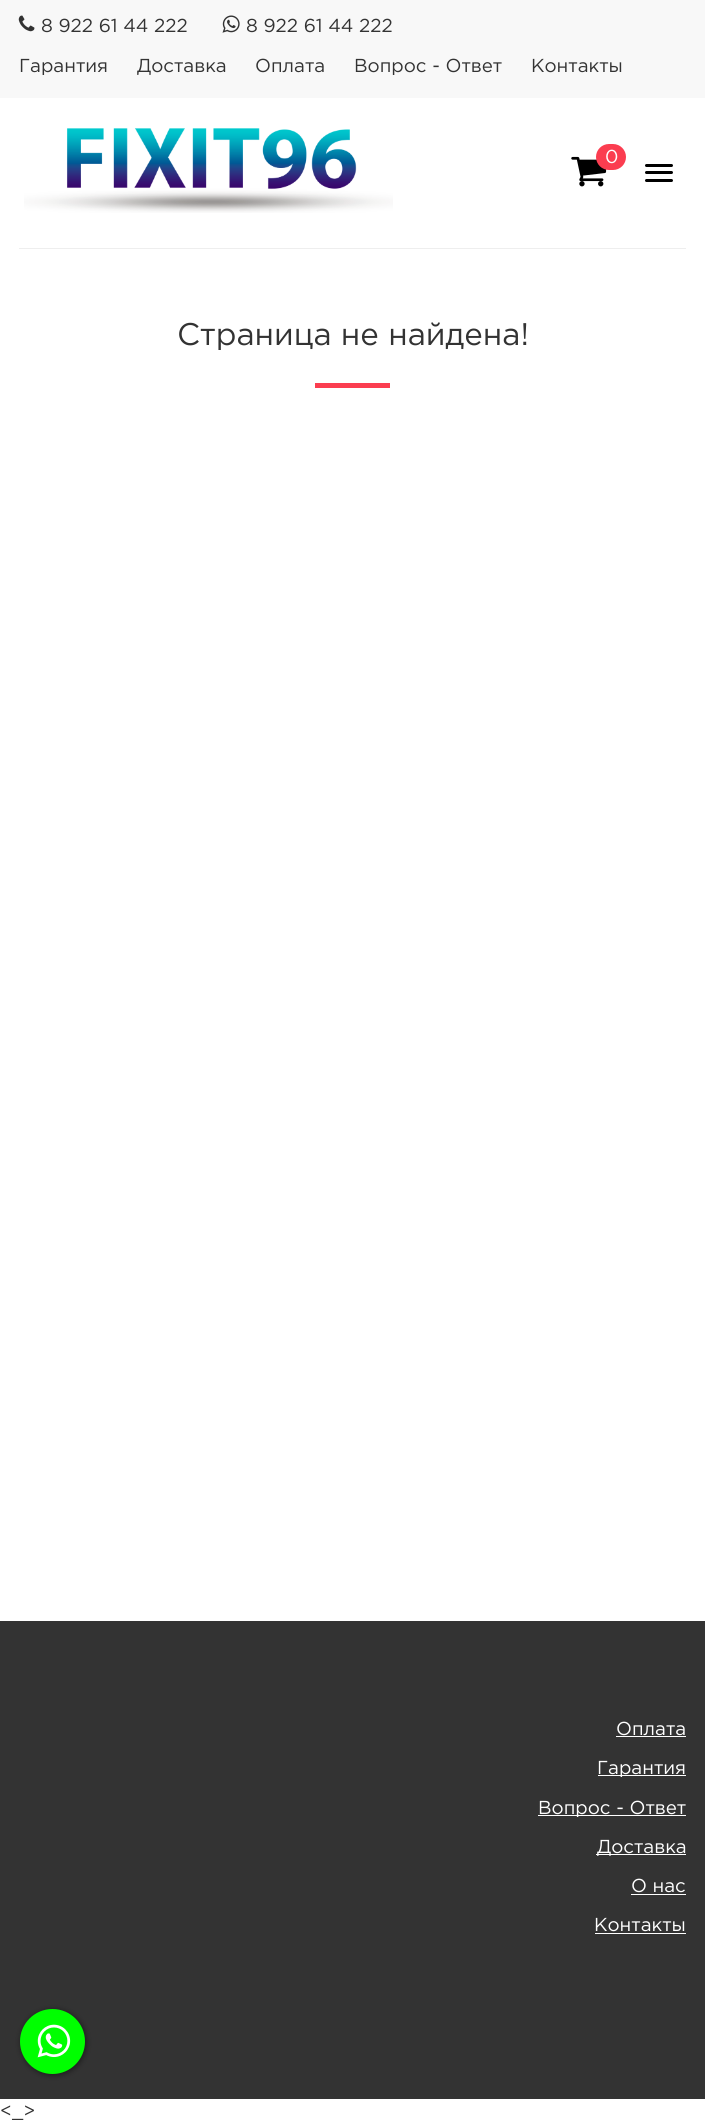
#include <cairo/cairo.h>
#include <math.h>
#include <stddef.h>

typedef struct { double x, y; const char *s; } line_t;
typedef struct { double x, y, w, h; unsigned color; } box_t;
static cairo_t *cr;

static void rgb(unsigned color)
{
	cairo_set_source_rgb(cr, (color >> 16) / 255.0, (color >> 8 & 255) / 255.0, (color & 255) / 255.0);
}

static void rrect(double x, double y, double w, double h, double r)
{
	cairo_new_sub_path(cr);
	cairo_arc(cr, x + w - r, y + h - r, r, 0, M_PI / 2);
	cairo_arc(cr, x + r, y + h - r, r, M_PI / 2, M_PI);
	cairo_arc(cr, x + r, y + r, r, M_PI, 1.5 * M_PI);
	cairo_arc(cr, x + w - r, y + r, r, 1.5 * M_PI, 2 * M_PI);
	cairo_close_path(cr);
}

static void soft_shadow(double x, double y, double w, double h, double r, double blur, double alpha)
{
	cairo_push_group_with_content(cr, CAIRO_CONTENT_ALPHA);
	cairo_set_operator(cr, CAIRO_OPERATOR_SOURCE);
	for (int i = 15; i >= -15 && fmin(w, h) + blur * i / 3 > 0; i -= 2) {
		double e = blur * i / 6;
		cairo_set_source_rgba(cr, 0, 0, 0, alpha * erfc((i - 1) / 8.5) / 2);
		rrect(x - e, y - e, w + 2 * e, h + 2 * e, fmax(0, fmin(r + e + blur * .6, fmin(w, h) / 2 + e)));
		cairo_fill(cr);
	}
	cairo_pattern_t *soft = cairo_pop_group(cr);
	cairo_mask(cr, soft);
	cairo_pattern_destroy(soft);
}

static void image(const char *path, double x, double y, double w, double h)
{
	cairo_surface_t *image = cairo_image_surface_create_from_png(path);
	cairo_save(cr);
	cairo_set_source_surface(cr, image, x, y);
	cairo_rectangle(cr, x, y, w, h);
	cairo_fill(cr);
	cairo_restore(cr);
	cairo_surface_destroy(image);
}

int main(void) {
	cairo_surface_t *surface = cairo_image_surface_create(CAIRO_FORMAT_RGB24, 705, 2124);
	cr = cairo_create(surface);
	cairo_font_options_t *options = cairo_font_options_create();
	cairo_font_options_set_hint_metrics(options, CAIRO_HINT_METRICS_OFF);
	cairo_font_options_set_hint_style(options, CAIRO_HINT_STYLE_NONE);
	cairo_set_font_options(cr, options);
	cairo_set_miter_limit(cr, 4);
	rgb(0xffffff);
	cairo_paint(cr);
	rgb(0xf8f8f8);
	cairo_rectangle(cr, 0, 0, 705, 98);
	cairo_fill(cr);
	image("img/1.png", 18, 15, 17, 17);
	image("img/2.png", 222, 15, 18, 18);
	image("img/3.png", 24, 128, 369, 85);
	image("img/4.png", 571, 156, 36, 31);
	rgb(0xfb3d50);
	rrect(596, 144, 30, 26, 13);
	cairo_fill(cr);
	rgb(0x000000);
	rrect(645, 164, 28, 3, 1.5);
	cairo_fill(cr);
	rrect(645, 171, 28, 3, 1.5);
	cairo_fill(cr);
	rrect(645, 179, 28, 3, 1.5);
	cairo_fill(cr);
	{
		static const box_t items[] = {
			{19, 248, 667, 1, 0xeeeeee},
			{315, 383, 75, 5, 0xfb3d50},
			{0, 1621, 705, 478, 0x333333},
			{616, 1736, 70, 1, 0xffffff},
			{598, 1775, 88, 1, 0xffffff},
			{538, 1815, 148, 1, 0xffffff},
			{596, 1854, 90, 1, 0xffffff},
			{631, 1894, 55, 1, 0xffffff},
			{595, 1933, 91, 1, 0xffffff},
		};
		for (size_t i = 0; i < sizeof items / sizeof *items; i++) {
			rgb(items[i].color);
			cairo_rectangle(cr, items[i].x, items[i].y, items[i].w, items[i].h);
			cairo_fill(cr);
		}
	}
	rgb(0x000000);
	soft_shadow(21, 2010, 65, 65, 32.5, 3, 0.5);
	rgb(0x00ff00);
	cairo_arc(cr, 52.5, 2041.5, 32.5, 0, 2 * M_PI);
	cairo_fill(cr);
	image("img/5.png", 37, 2024, 34, 34);
	cairo_select_font_face(cr, "Gotham", CAIRO_FONT_SLANT_NORMAL, CAIRO_FONT_WEIGHT_NORMAL);
	cairo_set_font_size(cr, 18.75);
	rgb(0x333333);
	{
		static const line_t items[] = {
			{41, 32, "8 922 61 44 222"},
			{246, 32, "8 922 61 44 222"},
			{19, 72, "Гарантия"},
			{137, 72, "Доставка"},
			{255, 72, "Оплата"},
			{354, 72, "Вопрос - Ответ"},
			{531, 72, "Контакты"},
		};
		for (size_t i = 0; i < sizeof items / sizeof *items; i++) {
			cairo_move_to(cr, items[i].x, items[i].y);
			cairo_show_text(cr, items[i].s);
		}
	}
	rgb(0xffffff);
	cairo_move_to(cr, 605, 163);
	cairo_show_text(cr, "0");
	cairo_set_font_size(cr, 31.25);
	rgb(0x333333);
	cairo_move_to(cr, 177, 345);
	cairo_show_text(cr, "Страница не найдена!");
	cairo_set_font_size(cr, 18.75);
	rgb(0xffffff);
	{
		static const line_t items[] = {
			{616, 1735, "Оплата"},
			{597, 1774, "Гарантия"},
			{538, 1814, "Вопрос - Ответ"},
			{597, 1853, "Доставка"},
			{631, 1892, "О нас"},
			{594, 1931, "Контакты"},
		};
		for (size_t i = 0; i < sizeof items / sizeof *items; i++) {
			cairo_move_to(cr, items[i].x, items[i].y);
			cairo_show_text(cr, items[i].s);
		}
	}
	rgb(0x333333);
	cairo_move_to(cr, 0, 2117);
	cairo_show_text(cr, "<_>");
	cairo_surface_write_to_png(surface, "page.png");
	cairo_font_options_destroy(options);
	cairo_destroy(cr);
	cairo_surface_destroy(surface);
	return 0;
}
